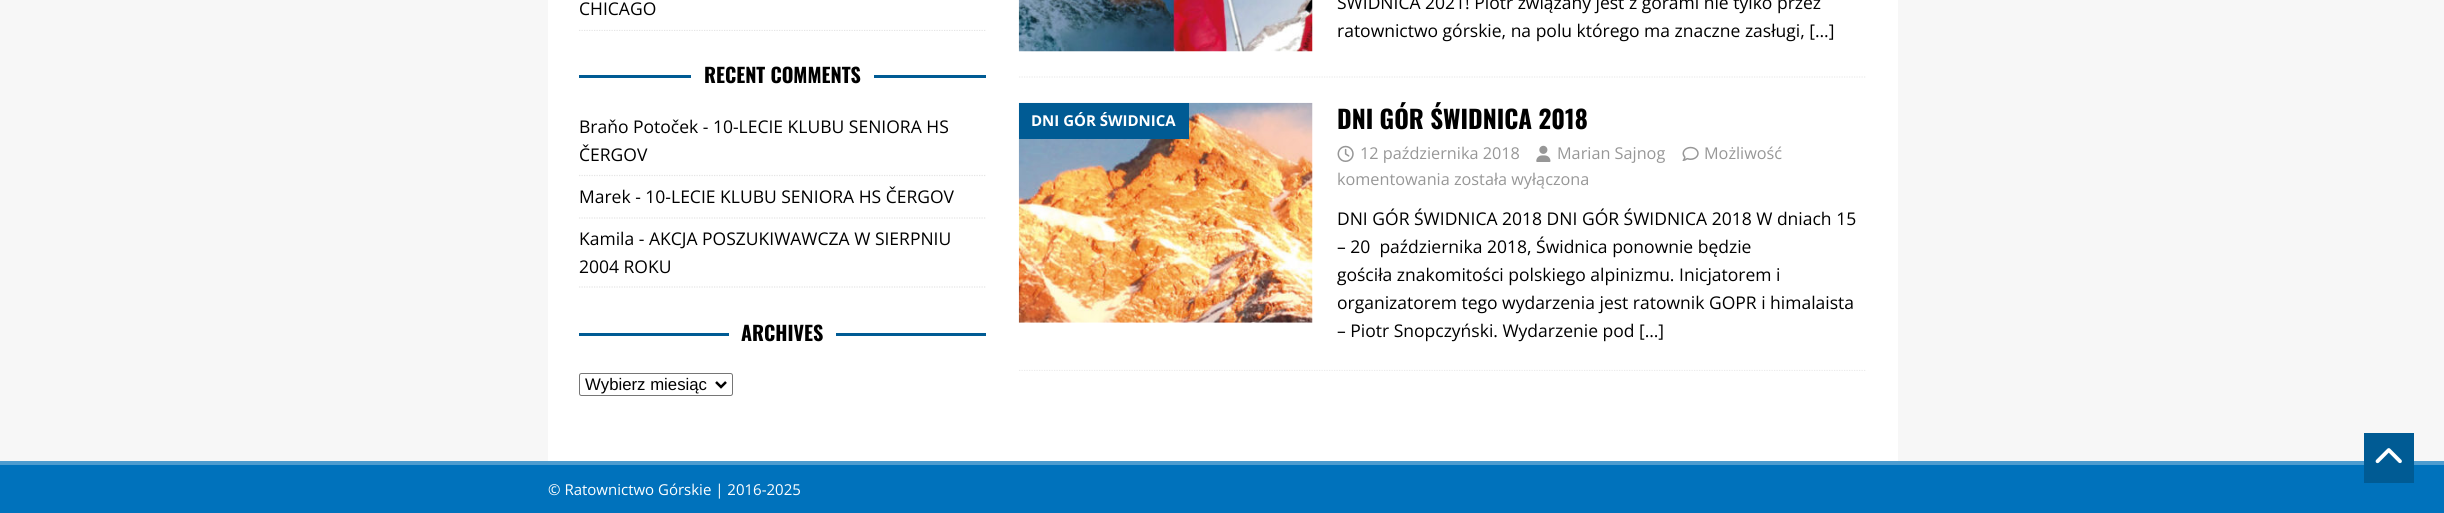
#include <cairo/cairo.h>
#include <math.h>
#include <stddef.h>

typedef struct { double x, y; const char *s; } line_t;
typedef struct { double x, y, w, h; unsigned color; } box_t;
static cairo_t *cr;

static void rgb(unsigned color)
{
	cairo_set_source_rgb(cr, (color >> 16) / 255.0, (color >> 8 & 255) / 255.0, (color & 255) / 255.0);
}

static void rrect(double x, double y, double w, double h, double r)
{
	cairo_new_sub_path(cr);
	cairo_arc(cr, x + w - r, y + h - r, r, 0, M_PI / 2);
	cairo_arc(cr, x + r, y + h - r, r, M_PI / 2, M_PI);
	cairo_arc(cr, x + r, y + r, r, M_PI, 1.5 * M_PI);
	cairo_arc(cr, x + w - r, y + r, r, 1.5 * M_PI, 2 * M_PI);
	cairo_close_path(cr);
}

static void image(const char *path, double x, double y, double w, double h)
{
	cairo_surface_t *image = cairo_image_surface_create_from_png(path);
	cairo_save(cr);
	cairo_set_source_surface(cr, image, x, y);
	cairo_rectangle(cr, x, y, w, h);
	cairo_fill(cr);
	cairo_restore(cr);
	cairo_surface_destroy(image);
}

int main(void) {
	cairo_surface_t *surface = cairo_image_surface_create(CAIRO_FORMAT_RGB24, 2444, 513);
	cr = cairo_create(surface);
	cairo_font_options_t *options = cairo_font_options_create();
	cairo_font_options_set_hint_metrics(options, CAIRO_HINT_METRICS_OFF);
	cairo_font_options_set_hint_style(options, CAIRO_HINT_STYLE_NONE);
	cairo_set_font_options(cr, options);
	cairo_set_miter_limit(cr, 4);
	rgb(0xf7f7f7);
	cairo_paint(cr);
	rgb(0xffffff);
	cairo_rectangle(cr, 548, 0, 1350, 461);
	cairo_fill(cr);
	cairo_save(cr);
	cairo_rectangle(cr, 579, 0, 407, 31);
	cairo_clip(cr);
	cairo_new_path(cr);
	cairo_move_to(cr, 579, 30.5);
	cairo_line_to(cr, 986, 30.5);
	rgb(0xe5e5e5);
	cairo_set_line_width(cr, 1.2);
	cairo_set_dash(cr, (double[]){1.25, 1.25}, 2, 0);
	cairo_stroke(cr);
	cairo_restore(cr);
	rgb(0x005b94);
	cairo_rectangle(cr, 579, 75, 407, 3);
	cairo_fill(cr);
	rgb(0xffffff);
	cairo_rectangle(cr, 691, 75, 183, 3);
	cairo_fill(cr);
	cairo_new_path(cr);
	cairo_move_to(cr, 579, 175.5);
	cairo_line_to(cr, 986, 175.5);
	rgb(0xe5e5e5);
	cairo_set_line_width(cr, 1.2);
	cairo_set_dash(cr, (double[]){1.25, 1.25}, 2, 0);
	cairo_stroke(cr);
	cairo_new_path(cr);
	cairo_move_to(cr, 579, 218);
	cairo_line_to(cr, 986, 218);
	cairo_stroke(cr);
	cairo_new_path(cr);
	cairo_move_to(cr, 579, 287);
	cairo_line_to(cr, 986, 287);
	cairo_stroke(cr);
	rgb(0x005b94);
	cairo_rectangle(cr, 579, 333, 407, 3);
	cairo_fill(cr);
	rgb(0xffffff);
	cairo_rectangle(cr, 729, 333, 107, 3);
	cairo_fill(cr);
	rrect(579.5, 373.5, 153, 22, 2);
	rgb(0x767676);
	cairo_set_line_width(cr, 1);
	cairo_set_dash(cr, NULL, 0, 0);
	cairo_stroke(cr);
	cairo_new_path(cr);
	cairo_move_to(cr, 716, 382);
	cairo_line_to(cr, 721, 387);
	cairo_line_to(cr, 726, 382);
	rgb(0x000000);
	cairo_set_line_width(cr, 2.5);
	cairo_stroke(cr);
	cairo_new_path(cr);
	cairo_move_to(cr, 1019, 77);
	cairo_line_to(cr, 1866, 77);
	rgb(0xebebeb);
	cairo_set_line_width(cr, 1.2);
	cairo_set_dash(cr, (double[]){1.25, 1.25}, 2, 0);
	cairo_stroke(cr);
	image("img/1.png", 1018, 0, 295, 52);
	cairo_save(cr);
	cairo_rectangle(cr, 1019, 0, 847, 371);
	cairo_clip(cr);
	cairo_new_path(cr);
	cairo_move_to(cr, 1019, 370.5);
	cairo_line_to(cr, 1866, 370.5);
	cairo_stroke(cr);
	cairo_restore(cr);
	image("img/2.png", 1018, 102, 295, 221);
	rgb(0x005b94);
	cairo_rectangle(cr, 1019, 103, 170, 36);
	cairo_fill(cr);
	image("img/3.png", 1682, 146, 17, 15);
	image("img/4.png", 1337, 145, 17, 17);
	image("img/5.png", 1536, 145, 15, 17);
	{
		static const box_t items[] = {
			{0, 465, 2444, 48, 0x0072bc},
			{0, 461, 2444, 4, 0x4d9cd0},
			{2364, 433, 50, 50, 0x005b94},
		};
		for (size_t i = 0; i < sizeof items / sizeof *items; i++) {
			rgb(items[i].color);
			cairo_rectangle(cr, items[i].x, items[i].y, items[i].w, items[i].h);
			cairo_fill(cr);
		}
	}
	image("img/6.png", 2375, 448, 27, 16);
	cairo_select_font_face(cr, "Open Sans", CAIRO_FONT_SLANT_NORMAL, CAIRO_FONT_WEIGHT_NORMAL);
	cairo_set_font_size(cr, 17.5);
	rgb(0x000000);
	cairo_move_to(cr, 579, 15);
	cairo_show_text(cr, "CHICAGO");
	cairo_select_font_face(cr, "Oswald", CAIRO_FONT_SLANT_NORMAL, CAIRO_FONT_WEIGHT_BOLD);
	cairo_set_font_size(cr, 20);
	cairo_move_to(cr, 704, 83);
	cairo_show_text(cr, "RECENT COMMENTS");
	cairo_select_font_face(cr, "Open Sans", CAIRO_FONT_SLANT_NORMAL, CAIRO_FONT_WEIGHT_NORMAL);
	cairo_set_font_size(cr, 17.5);
	{
		static const line_t items[] = {
			{579, 133, "Braňo Potoček - 10-LECIE KLUBU SENIORA HS"},
			{579, 161, "ČERGOV"},
			{579, 203, "Marek - 10-LECIE KLUBU SENIORA HS ČERGOV"},
			{579, 245, "Kamila - AKCJA POSZUKIWAWCZA W SIERPNIU"},
			{579, 273, "2004 ROKU"},
		};
		for (size_t i = 0; i < sizeof items / sizeof *items; i++) {
			cairo_move_to(cr, items[i].x, items[i].y);
			cairo_show_text(cr, items[i].s);
		}
	}
	cairo_select_font_face(cr, "Oswald", CAIRO_FONT_SLANT_NORMAL, CAIRO_FONT_WEIGHT_BOLD);
	cairo_set_font_size(cr, 20);
	cairo_move_to(cr, 741, 341);
	cairo_show_text(cr, "ARCHIVES");
	cairo_select_font_face(cr, "Liberation Sans", CAIRO_FONT_SLANT_NORMAL, CAIRO_FONT_WEIGHT_NORMAL);
	cairo_set_font_size(cr, 16.75);
	cairo_move_to(cr, 585, 390);
	cairo_show_text(cr, "Wybierz miesiąc");
	cairo_select_font_face(cr, "Open Sans", CAIRO_FONT_SLANT_NORMAL, CAIRO_FONT_WEIGHT_NORMAL);
	cairo_set_font_size(cr, 17.5);
	cairo_move_to(cr, 1337, 9);
	cairo_show_text(cr, "ŚWIDNICA 2021! Piotr związany jest z górami nie tylko przez");
	cairo_move_to(cr, 1337, 37);
	cairo_show_text(cr, "ratownictwo górskie, na polu którego ma znaczne zasługi, […]");
	cairo_select_font_face(cr, "Open Sans", CAIRO_FONT_SLANT_NORMAL, CAIRO_FONT_WEIGHT_BOLD);
	cairo_set_font_size(cr, 15);
	rgb(0xffffff);
	cairo_move_to(cr, 1031, 126);
	cairo_show_text(cr, "DNI GÓR ŚWIDNICA");
	cairo_select_font_face(cr, "Oswald", CAIRO_FONT_SLANT_NORMAL, CAIRO_FONT_WEIGHT_BOLD);
	cairo_set_font_size(cr, 25);
	rgb(0x000000);
	cairo_move_to(cr, 1337, 129);
	cairo_show_text(cr, "DNI GÓR ŚWIDNICA 2018");
	cairo_select_font_face(cr, "Open Sans", CAIRO_FONT_SLANT_NORMAL, CAIRO_FONT_WEIGHT_NORMAL);
	cairo_set_font_size(cr, 16.25);
	rgb(0x979797);
	{
		static const line_t items[] = {
			{1704, 159, "Możliwość"},
			{1337, 185, "komentowania została wyłączona"},
			{1360, 159, "12 października 2018"},
			{1557, 159, "Marian Sajnog"},
		};
		for (size_t i = 0; i < sizeof items / sizeof *items; i++) {
			cairo_move_to(cr, items[i].x, items[i].y);
			cairo_show_text(cr, items[i].s);
		}
	}
	cairo_set_font_size(cr, 17.5);
	rgb(0x000000);
	{
		static const line_t items[] = {
			{1337, 225, "DNI GÓR ŚWIDNICA 2018 DNI GÓR ŚWIDNICA 2018 W dniach 15"},
			{1337, 253, "– 20  października 2018, Świdnica ponownie będzie"},
			{1337, 281, "gościła znakomitości polskiego alpinizmu. Inicjatorem i"},
			{1337, 309, "organizatorem tego wydarzenia jest ratownik GOPR i himalaista"},
			{1337, 337, "– Piotr Snopczyński. Wydarzenie pod […]"},
		};
		for (size_t i = 0; i < sizeof items / sizeof *items; i++) {
			cairo_move_to(cr, items[i].x, items[i].y);
			cairo_show_text(cr, items[i].s);
		}
	}
	cairo_set_font_size(cr, 15);
	rgb(0xffffff);
	cairo_move_to(cr, 548, 495);
	cairo_show_text(cr, "© Ratownictwo Górskie | 2016-2025");
	cairo_surface_write_to_png(surface, "page.png");
	cairo_font_options_destroy(options);
	cairo_destroy(cr);
	cairo_surface_destroy(surface);
	return 0;
}
